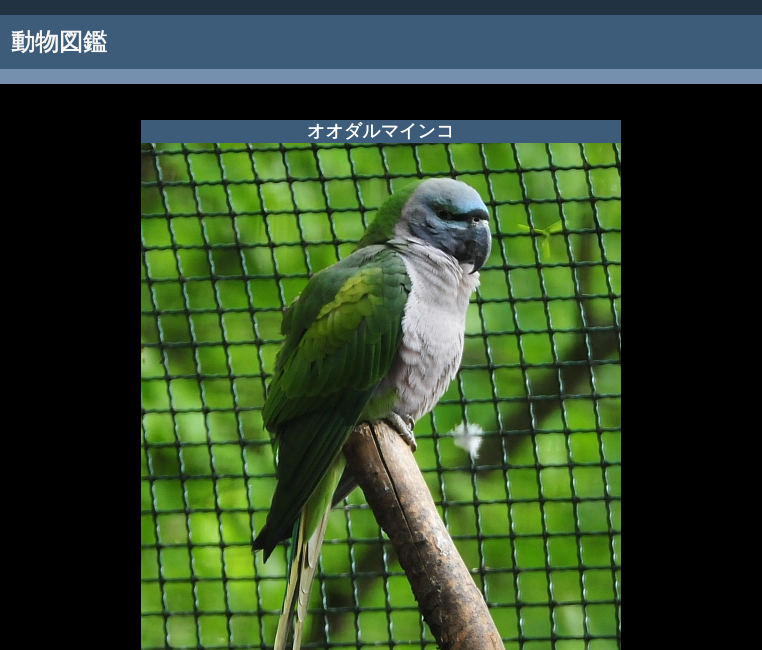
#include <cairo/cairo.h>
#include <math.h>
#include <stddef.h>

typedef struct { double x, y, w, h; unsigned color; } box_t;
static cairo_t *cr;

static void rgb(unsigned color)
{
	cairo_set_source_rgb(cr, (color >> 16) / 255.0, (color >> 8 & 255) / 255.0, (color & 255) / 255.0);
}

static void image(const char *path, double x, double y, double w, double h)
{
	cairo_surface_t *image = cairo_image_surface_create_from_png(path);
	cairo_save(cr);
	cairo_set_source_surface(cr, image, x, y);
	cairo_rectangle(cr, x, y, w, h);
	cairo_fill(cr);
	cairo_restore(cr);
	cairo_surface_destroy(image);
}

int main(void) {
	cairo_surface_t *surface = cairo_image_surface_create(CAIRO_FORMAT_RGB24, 762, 650);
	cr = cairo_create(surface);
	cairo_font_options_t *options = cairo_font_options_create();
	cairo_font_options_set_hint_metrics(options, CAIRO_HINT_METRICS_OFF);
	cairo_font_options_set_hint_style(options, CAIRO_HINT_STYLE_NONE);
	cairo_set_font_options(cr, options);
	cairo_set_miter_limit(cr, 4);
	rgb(0x000001);
	cairo_paint(cr);
	{
		static const box_t items[] = {
			{0, 0, 762, 15, 0x213242},
			{0, 15, 762, 54, 0x3d5c7a},
			{0, 69, 762, 15, 0x7590ae},
			{141, 120, 480, 23, 0x3d5c7a},
		};
		for (size_t i = 0; i < sizeof items / sizeof *items; i++) {
			rgb(items[i].color);
			cairo_rectangle(cr, items[i].x, items[i].y, items[i].w, items[i].h);
			cairo_fill(cr);
		}
	}
	image("img/1.png", 141, 143, 480, 507);
	cairo_select_font_face(cr, "WenQuanYi Zen Hei", CAIRO_FONT_SLANT_NORMAL, CAIRO_FONT_WEIGHT_BOLD);
	cairo_set_font_size(cr, 24);
	rgb(0xf5f5f6);
	cairo_move_to(cr, 11, 50);
	cairo_show_text(cr, "動物図鑑");
	cairo_set_font_size(cr, 18);
	rgb(0xffffff);
	cairo_move_to(cr, 307, 137);
	cairo_show_text(cr, "オオダルマインコ");
	cairo_surface_write_to_png(surface, "page.png");
	cairo_font_options_destroy(options);
	cairo_destroy(cr);
	cairo_surface_destroy(surface);
	return 0;
}
